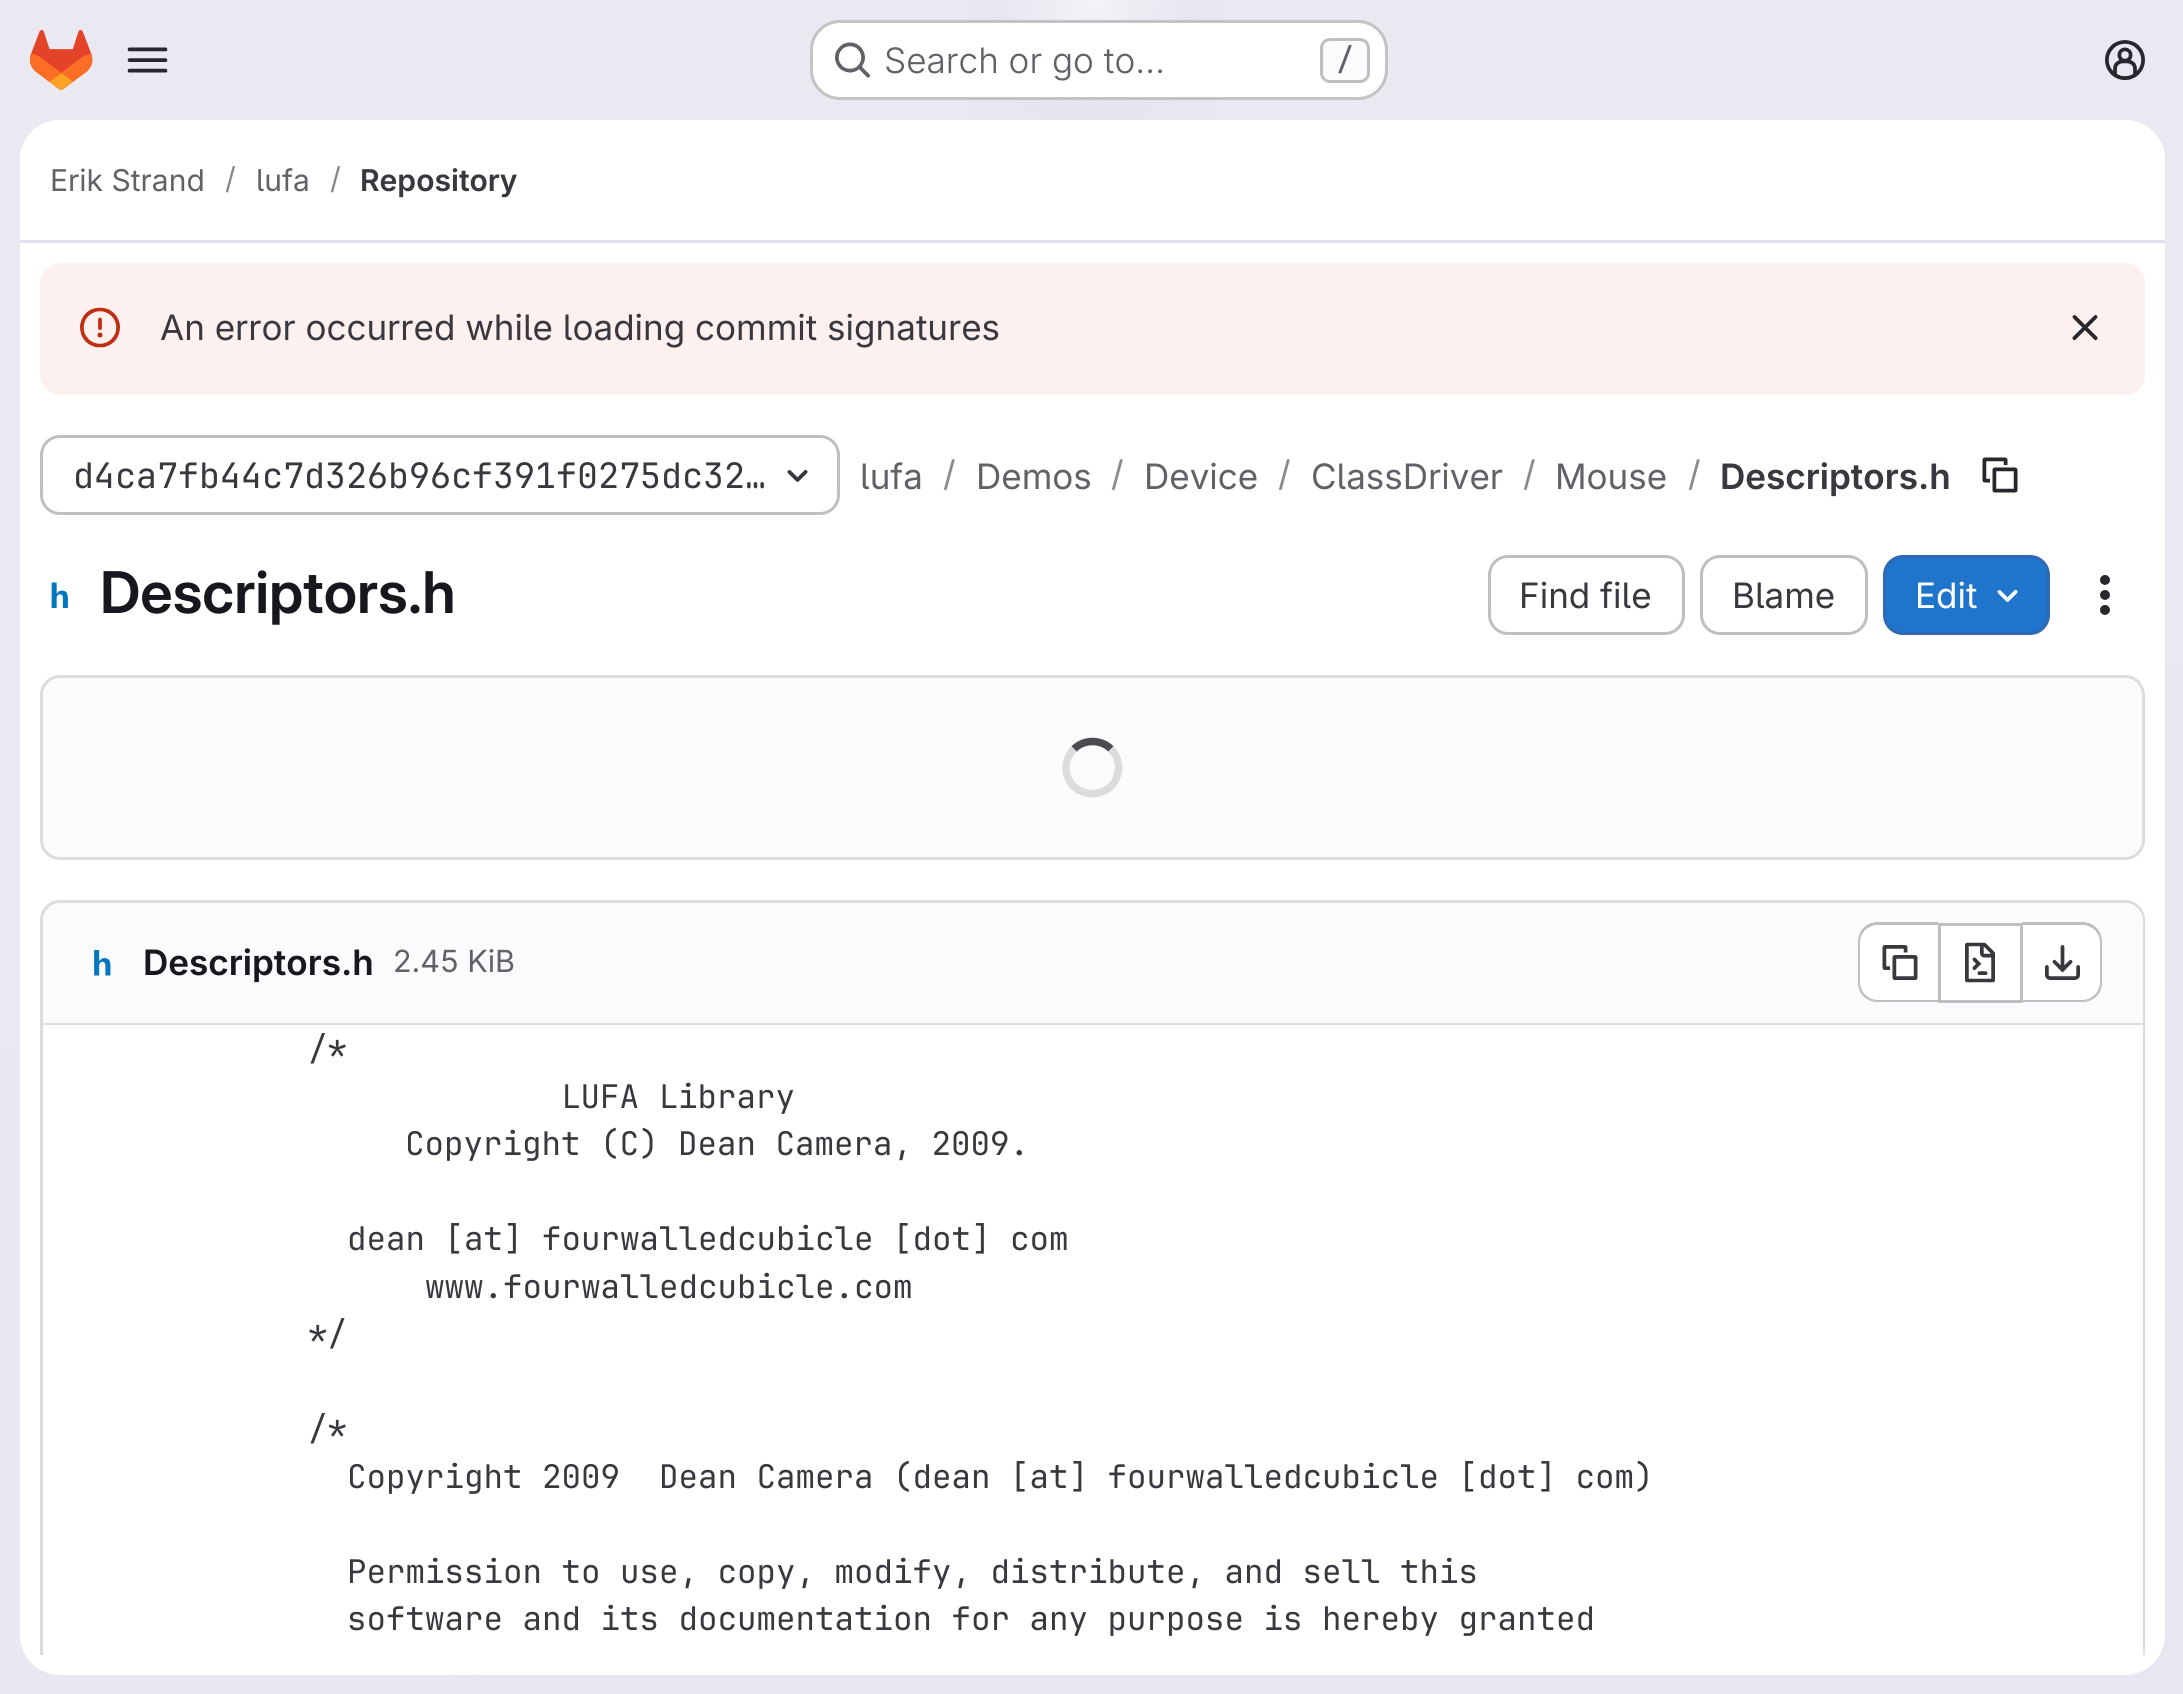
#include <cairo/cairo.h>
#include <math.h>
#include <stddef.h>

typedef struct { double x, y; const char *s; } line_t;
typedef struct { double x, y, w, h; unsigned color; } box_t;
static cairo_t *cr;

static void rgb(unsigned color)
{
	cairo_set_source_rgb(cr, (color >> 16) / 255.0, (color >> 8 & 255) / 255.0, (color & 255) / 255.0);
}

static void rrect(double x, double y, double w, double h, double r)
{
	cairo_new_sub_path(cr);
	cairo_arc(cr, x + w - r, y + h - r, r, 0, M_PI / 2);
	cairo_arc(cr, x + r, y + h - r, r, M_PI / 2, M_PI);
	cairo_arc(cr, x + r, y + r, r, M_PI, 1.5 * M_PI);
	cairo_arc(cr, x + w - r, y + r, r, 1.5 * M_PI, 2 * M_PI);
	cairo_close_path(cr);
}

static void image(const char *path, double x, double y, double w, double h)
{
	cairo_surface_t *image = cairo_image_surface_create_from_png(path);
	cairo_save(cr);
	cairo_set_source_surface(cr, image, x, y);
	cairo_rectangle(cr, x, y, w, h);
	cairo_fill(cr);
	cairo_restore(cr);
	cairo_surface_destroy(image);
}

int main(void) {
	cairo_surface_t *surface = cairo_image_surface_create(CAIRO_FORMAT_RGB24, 2183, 1694);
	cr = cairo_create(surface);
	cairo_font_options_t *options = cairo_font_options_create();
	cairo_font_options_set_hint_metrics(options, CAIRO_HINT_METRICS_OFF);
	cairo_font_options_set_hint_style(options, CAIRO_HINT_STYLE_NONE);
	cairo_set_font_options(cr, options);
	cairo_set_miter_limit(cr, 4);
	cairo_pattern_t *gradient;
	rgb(0xffffff);
	cairo_paint(cr);
	gradient = cairo_pattern_create_linear(1270, 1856, 915, -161);
	cairo_pattern_add_color_stop_rgba(gradient, 0, 0.91, 0.902, 0.941, 1);
	cairo_pattern_add_color_stop_rgba(gradient, 0.7, 0.918, 0.914, 0.949, 1);
	cairo_set_source(cr, gradient);
	cairo_pattern_destroy(gradient);
	cairo_rectangle(cr, 0, 0, 2183, 1694);
	cairo_fill(cr);
	gradient = cairo_pattern_create_radial(0, 0, 0, 0, 0, 1);
	cairo_pattern_set_matrix(gradient, &(cairo_matrix_t){1.0 / 1093, 0, 0, 1.0 / 1695, -1.0 * 1093 / 1093, -1.0 * 0 / 1695});
	cairo_pattern_add_color_stop_rgba(gradient, 0, 0.894, 0.886, 0.929, 1);
	cairo_pattern_add_color_stop_rgba(gradient, 0.16, 0.894, 0.886, 0.929, 0);
	cairo_set_source(cr, gradient);
	cairo_pattern_destroy(gradient);
	cairo_rectangle(cr, 967, 0, 252, 120);
	cairo_fill(cr);
	gradient = cairo_pattern_create_radial(0, 0, 0, 0, 0, 1);
	cairo_pattern_set_matrix(gradient, &(cairo_matrix_t){1.0 / 1093, 0, 0, 1.0 / 1695, -1.0 * 1093 / 1093, -1.0 * 0 / 1695});
	cairo_pattern_add_color_stop_rgba(gradient, 0, 0.894, 0.886, 0.925, 1);
	cairo_pattern_add_color_stop_rgba(gradient, 0.11, 0.894, 0.886, 0.925, 0);
	cairo_set_source(cr, gradient);
	cairo_pattern_destroy(gradient);
	cairo_rectangle(cr, 1043, 3, 100, 74);
	cairo_fill(cr);
	gradient = cairo_pattern_create_radial(1093, 0, 0, 1093, 0, 2017);
	cairo_pattern_add_color_stop_rgba(gradient, 0, 1, 1, 1, 0.6);
	cairo_pattern_add_color_stop_rgba(gradient, 0.05, 1, 1, 1, 0);
	cairo_set_source(cr, gradient);
	cairo_pattern_destroy(gradient);
	cairo_rectangle(cr, 1007, 0, 172, 20);
	cairo_fill(cr);
	image("img/1.png", 30, 30, 63, 60);
	image("img/2.png", 127, 47, 41, 26);
	rgb(0xffffff);
	rrect(810, 20, 578, 80, 30);
	cairo_fill(cr);
	rrect(811.5, 21.5, 575, 77, 28.5);
	cairo_set_source_rgba(cr, 0.02, 0.02, 0.024, 0.24);
	cairo_set_line_width(cr, 3);
	cairo_stroke(cr);
	image("img/3.png", 835, 42, 36, 36);
	rgb(0xfbfafd);
	rrect(1321.5, 39.5, 47, 42, 8.5);
	cairo_fill_preserve(cr);
	rgb(0xbfbfc3);
	cairo_stroke(cr);
	image("img/4.png", 2105, 40, 40, 40);
	rgb(0xffffff);
	rrect(20, 120, 2145, 1555, 40);
	cairo_fill(cr);
	cairo_new_path(cr);
	cairo_move_to(cr, 60, 120);
	cairo_line_to(cr, 2125, 120);
	cairo_curve_to(cr, 2147, 120, 2165, 138, 2165, 160);
	cairo_line_to(cr, 2165, 243);
	cairo_line_to(cr, 20, 243);
	cairo_line_to(cr, 20, 160);
	cairo_curve_to(cr, 20, 138, 38, 120, 60, 120);
	cairo_close_path(cr);
	cairo_fill(cr);
	rgb(0xe1dfec);
	cairo_rectangle(cr, 20, 240, 2145, 3);
	cairo_fill(cr);
	rgb(0xfcf1ef);
	rrect(40, 263, 2105, 132, 20);
	cairo_fill(cr);
	image("img/5.png", 80, 307, 40, 41);
	image("img/6.png", 2072, 315, 26, 26);
	rrect(41.5, 436.5, 797, 77, 18.5);
	rgb(0xbfbfc3);
	cairo_stroke(cr);
	image("img/7.png", 787, 469, 21, 13);
	image("img/8.png", 1982, 457, 36, 36);
	image("img/9.png", 51, 582, 17, 26);
	rrect(1489.5, 556.5, 194, 77, 18.5);
	cairo_stroke(cr);
	rrect(1701.5, 556.5, 165, 77, 18.5);
	cairo_stroke(cr);
	rgb(0x1f75cb);
	rrect(1884.5, 556.5, 164, 77, 18.5);
	cairo_fill_preserve(cr);
	rgb(0x2f68b4);
	cairo_stroke(cr);
	image("img/10.png", 1997, 589, 21, 13);
	image("img/11.png", 2100, 575, 10, 40);
	rgb(0xfbfafd);
	rrect(41.5, 676.5, 2102, 182, 18.5);
	cairo_fill_preserve(cr);
	rgb(0xdcdcde);
	cairo_stroke(cr);
	cairo_new_path(cr);
	cairo_move_to(cr, 1074, 749);
	cairo_curve_to(cr, 1084, 739, 1101, 739, 1111, 749);
	rgb(0x4c4b51);
	cairo_set_line_width(cr, 7.5);
	cairo_stroke(cr);
	cairo_new_path(cr);
	cairo_move_to(cr, 1111, 749);
	cairo_curve_to(cr, 1117, 755, 1120, 764, 1118, 772.5);
	cairo_curve_to(cr, 1112, 803.5, 1066, 799, 1066, 767.5);
	cairo_curve_to(cr, 1066, 760.5, 1069, 754, 1074, 749);
	rgb(0xdcdcde);
	cairo_stroke(cr);
	cairo_save(cr);
	cairo_rectangle(cr, 20, 243, 2145, 1412);
	cairo_clip(cr);
	cairo_new_path(cr);
	cairo_move_to(cr, 60, 900);
	cairo_curve_to(cr, 49, 900, 40, 909, 40, 920);
	cairo_line_to(cr, 40, 1670);
	cairo_line_to(cr, 43, 1671);
	cairo_line_to(cr, 43, 920);
	cairo_curve_to(cr, 43, 911, 51, 903, 60, 903);
	cairo_line_to(cr, 2125, 903);
	cairo_curve_to(cr, 2134, 903, 2142, 911, 2142, 920);
	cairo_line_to(cr, 2142, 1671);
	cairo_line_to(cr, 2145, 1670);
	cairo_line_to(cr, 2145, 920);
	cairo_curve_to(cr, 2145, 909, 2136, 900, 2125, 900);
	cairo_close_path(cr);
	cairo_fill(cr);
	cairo_restore(cr);
	rgb(0xfbfafd);
	cairo_new_path(cr);
	cairo_move_to(cr, 61, 903);
	cairo_line_to(cr, 2125, 903);
	cairo_curve_to(cr, 2135, 903, 2143, 911, 2143, 921);
	cairo_line_to(cr, 2143, 1025);
	cairo_line_to(cr, 43, 1025);
	cairo_line_to(cr, 43, 921);
	cairo_curve_to(cr, 43, 911, 51, 903, 61, 903);
	cairo_close_path(cr);
	cairo_fill(cr);
	rgb(0xdcdcde);
	cairo_rectangle(cr, 43, 1023, 2100, 2);
	cairo_fill(cr);
	image("img/12.png", 94, 950, 17, 26);
	rgb(0xffffff);
	cairo_new_path(cr);
	cairo_move_to(cr, 1878, 925);
	cairo_line_to(cr, 1938, 925);
	cairo_line_to(cr, 1938, 1000);
	cairo_line_to(cr, 1878, 1000);
	cairo_curve_to(cr, 1868, 1000, 1860, 992, 1860, 982);
	cairo_line_to(cr, 1860, 943);
	cairo_curve_to(cr, 1860, 933, 1868, 925, 1878, 925);
	cairo_close_path(cr);
	cairo_fill(cr);
	rgb(0xbfbfc3);
	cairo_set_fill_rule(cr, CAIRO_FILL_RULE_EVEN_ODD);
	cairo_new_path(cr);
	cairo_move_to(cr, 1878, 922);
	cairo_line_to(cr, 1938, 922);
	cairo_line_to(cr, 1938, 1002);
	cairo_line_to(cr, 1878, 1002);
	cairo_curve_to(cr, 1866, 1002, 1858, 994, 1858, 982);
	cairo_line_to(cr, 1858, 942);
	cairo_curve_to(cr, 1858, 931, 1866, 922, 1878, 922);
	cairo_close_path(cr);
	cairo_move_to(cr, 1878, 925);
	cairo_line_to(cr, 1938, 925);
	cairo_line_to(cr, 1938, 1000);
	cairo_line_to(cr, 1878, 1000);
	cairo_curve_to(cr, 1868, 1000, 1860, 992, 1860, 982);
	cairo_line_to(cr, 1860, 942);
	cairo_curve_to(cr, 1860, 933, 1868, 925, 1878, 925);
	cairo_close_path(cr);
	cairo_fill(cr);
	image("img/13.png", 1882, 945, 36, 35);
	{
		static const box_t items[] = {
			{1941, 926, 79, 74, 0xffffff},
			{1940, 923, 80, 3, 0xbfbfc3},
			{1940, 1000, 80, 3, 0xbfbfc3},
			{1938, 923, 3, 80, 0xbfbfc3},
		};
		for (size_t i = 0; i < sizeof items / sizeof *items; i++) {
			rgb(items[i].color);
			cairo_rectangle(cr, items[i].x, items[i].y, items[i].w, items[i].h);
			cairo_fill(cr);
		}
	}
	image("img/14.png", 1965, 942, 30, 41);
	rgb(0xffffff);
	cairo_new_path(cr);
	cairo_move_to(cr, 2023, 925);
	cairo_line_to(cr, 2082, 925);
	cairo_curve_to(cr, 2092, 925, 2100, 933, 2100, 943);
	cairo_line_to(cr, 2100, 982);
	cairo_curve_to(cr, 2100, 992, 2092, 1000, 2082, 1000);
	cairo_line_to(cr, 2023, 1000);
	cairo_close_path(cr);
	cairo_fill(cr);
	rgb(0xbfbfc3);
	cairo_new_path(cr);
	cairo_move_to(cr, 2022, 922);
	cairo_line_to(cr, 2082, 922);
	cairo_curve_to(cr, 2094, 922, 2102, 931, 2102, 942);
	cairo_line_to(cr, 2102, 982);
	cairo_curve_to(cr, 2102, 994, 2094, 1002, 2082, 1002);
	cairo_line_to(cr, 2022, 1002);
	cairo_close_path(cr);
	cairo_move_to(cr, 2022, 925);
	cairo_line_to(cr, 2082, 925);
	cairo_curve_to(cr, 2092, 925, 2100, 933, 2100, 942);
	cairo_line_to(cr, 2100, 982);
	cairo_curve_to(cr, 2100, 992, 2092, 1000, 2082, 1000);
	cairo_line_to(cr, 2022, 1000);
	cairo_close_path(cr);
	cairo_fill(cr);
	cairo_rectangle(cr, 2020, 923, 3, 80);
	cairo_fill(cr);
	image("img/15.png", 2045, 945, 35, 35);
	rgb(0xffffff);
	cairo_rectangle(cr, 2142, 1025, 1, 630);
	cairo_fill(cr);
	cairo_select_font_face(cr, "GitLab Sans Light", CAIRO_FONT_SLANT_NORMAL, CAIRO_FONT_WEIGHT_NORMAL);
	cairo_set_font_size(cr, 35);
	rgb(0x626168);
	cairo_move_to(cr, 884, 73);
	cairo_show_text(cr, "Search or go to…");
	cairo_select_font_face(cr, "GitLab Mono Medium", CAIRO_FONT_SLANT_NORMAL, CAIRO_FONT_WEIGHT_NORMAL);
	cairo_set_font_size(cr, 30);
	cairo_move_to(cr, 1336, 70);
	cairo_show_text(cr, "/");
	cairo_select_font_face(cr, "GitLab Sans", CAIRO_FONT_SLANT_NORMAL, CAIRO_FONT_WEIGHT_NORMAL);
	cairo_move_to(cr, 50, 191);
	cairo_show_text(cr, "Erik Strand");
	rgb(0x89888d);
	cairo_move_to(cr, 225, 189);
	cairo_show_text(cr, "/");
	rgb(0x626168);
	cairo_move_to(cr, 256, 191);
	cairo_show_text(cr, "lufa");
	rgb(0x89888d);
	cairo_move_to(cr, 330, 189);
	cairo_show_text(cr, "/");
	cairo_select_font_face(cr, "GitLab Sans SemiBold", CAIRO_FONT_SLANT_NORMAL, CAIRO_FONT_WEIGHT_NORMAL);
	rgb(0x3a383f);
	cairo_move_to(cr, 360, 191);
	cairo_show_text(cr, "Repository");
	cairo_select_font_face(cr, "GitLab Sans", CAIRO_FONT_SLANT_NORMAL, CAIRO_FONT_WEIGHT_NORMAL);
	cairo_set_font_size(cr, 35);
	cairo_move_to(cr, 160, 340);
	cairo_show_text(cr, "An error occurred while loading commit signatures");
	cairo_select_font_face(cr, "GitLab Mono", CAIRO_FONT_SLANT_NORMAL, CAIRO_FONT_WEIGHT_NORMAL);
	cairo_move_to(cr, 73, 488);
	cairo_show_text(cr, "d4ca7fb44c7d326b96cf391f0275dc32…");
	cairo_select_font_face(cr, "GitLab Sans", CAIRO_FONT_SLANT_NORMAL, CAIRO_FONT_WEIGHT_NORMAL);
	rgb(0x626168);
	cairo_move_to(cr, 860, 489);
	cairo_show_text(cr, "lufa");
	rgb(0x89888d);
	cairo_move_to(cr, 943, 486);
	cairo_show_text(cr, "/");
	rgb(0x626168);
	cairo_move_to(cr, 976, 489);
	cairo_show_text(cr, "Demos");
	rgb(0x89888d);
	cairo_move_to(cr, 1111, 486);
	cairo_show_text(cr, "/");
	rgb(0x626168);
	cairo_move_to(cr, 1144, 489);
	cairo_show_text(cr, "Device");
	rgb(0x89888d);
	cairo_move_to(cr, 1278, 486);
	cairo_show_text(cr, "/");
	rgb(0x626168);
	cairo_move_to(cr, 1311, 489);
	cairo_show_text(cr, "ClassDriver");
	rgb(0x89888d);
	cairo_move_to(cr, 1523, 486);
	cairo_show_text(cr, "/");
	rgb(0x626168);
	cairo_move_to(cr, 1555, 489);
	cairo_show_text(cr, "Mouse");
	rgb(0x89888d);
	cairo_move_to(cr, 1688, 486);
	cairo_show_text(cr, "/");
	cairo_select_font_face(cr, "GitLab Sans SemiBold", CAIRO_FONT_SLANT_NORMAL, CAIRO_FONT_WEIGHT_NORMAL);
	rgb(0x3a383f);
	cairo_move_to(cr, 1720, 489);
	cairo_show_text(cr, "Descriptors.h");
	cairo_select_font_face(cr, "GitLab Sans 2 SemiBold", CAIRO_FONT_SLANT_NORMAL, CAIRO_FONT_WEIGHT_NORMAL);
	cairo_set_font_size(cr, 57.5);
	rgb(0x18171d);
	cairo_move_to(cr, 100, 613);
	cairo_show_text(cr, "Descriptors.h");
	cairo_select_font_face(cr, "GitLab Sans", CAIRO_FONT_SLANT_NORMAL, CAIRO_FONT_WEIGHT_NORMAL);
	cairo_set_font_size(cr, 35);
	rgb(0x3a383f);
	cairo_move_to(cr, 1519, 608);
	cairo_show_text(cr, "Find file");
	cairo_move_to(cr, 1732, 608);
	cairo_show_text(cr, "Blame");
	rgb(0xffffff);
	cairo_move_to(cr, 1915, 608);
	cairo_show_text(cr, "Edit");
	cairo_select_font_face(cr, "GitLab Sans SemiBold", CAIRO_FONT_SLANT_NORMAL, CAIRO_FONT_WEIGHT_NORMAL);
	rgb(0x18171d);
	cairo_move_to(cr, 143, 975);
	cairo_show_text(cr, "Descriptors.h");
	cairo_select_font_face(cr, "GitLab Sans", CAIRO_FONT_SLANT_NORMAL, CAIRO_FONT_WEIGHT_NORMAL);
	cairo_set_font_size(cr, 30.5);
	rgb(0x626168);
	cairo_move_to(cr, 393, 972);
	cairo_show_text(cr, "2.45 KiB");
	cairo_select_font_face(cr, "GitLab Mono", CAIRO_FONT_SLANT_NORMAL, CAIRO_FONT_WEIGHT_NORMAL);
	cairo_set_font_size(cr, 32.5);
	rgb(0x3a383f);
	{
		static const line_t items[] = {
			{308, 1060, "/*"},
			{561, 1108, "LUFA Library"},
			{405, 1155, "Copyright (C) Dean Camera, 2009."},
			{347, 1250, "dean [at] fourwalledcubicle [dot] com"},
			{425, 1298, "www.fourwalledcubicle.com"},
			{308, 1345, "*/"},
			{308, 1440, "/*"},
			{347, 1488, "Copyright 2009  Dean Camera (dean [at] fourwalledcubicle [dot] com)"},
			{347, 1583, "Permission to use, copy, modify, distribute, and sell this"},
			{347, 1630, "software and its documentation for any purpose is hereby granted"},
		};
		for (size_t i = 0; i < sizeof items / sizeof *items; i++) {
			cairo_move_to(cr, items[i].x, items[i].y);
			cairo_show_text(cr, items[i].s);
		}
	}
	cairo_surface_write_to_png(surface, "page.png");
	cairo_font_options_destroy(options);
	cairo_destroy(cr);
	cairo_surface_destroy(surface);
	return 0;
}
